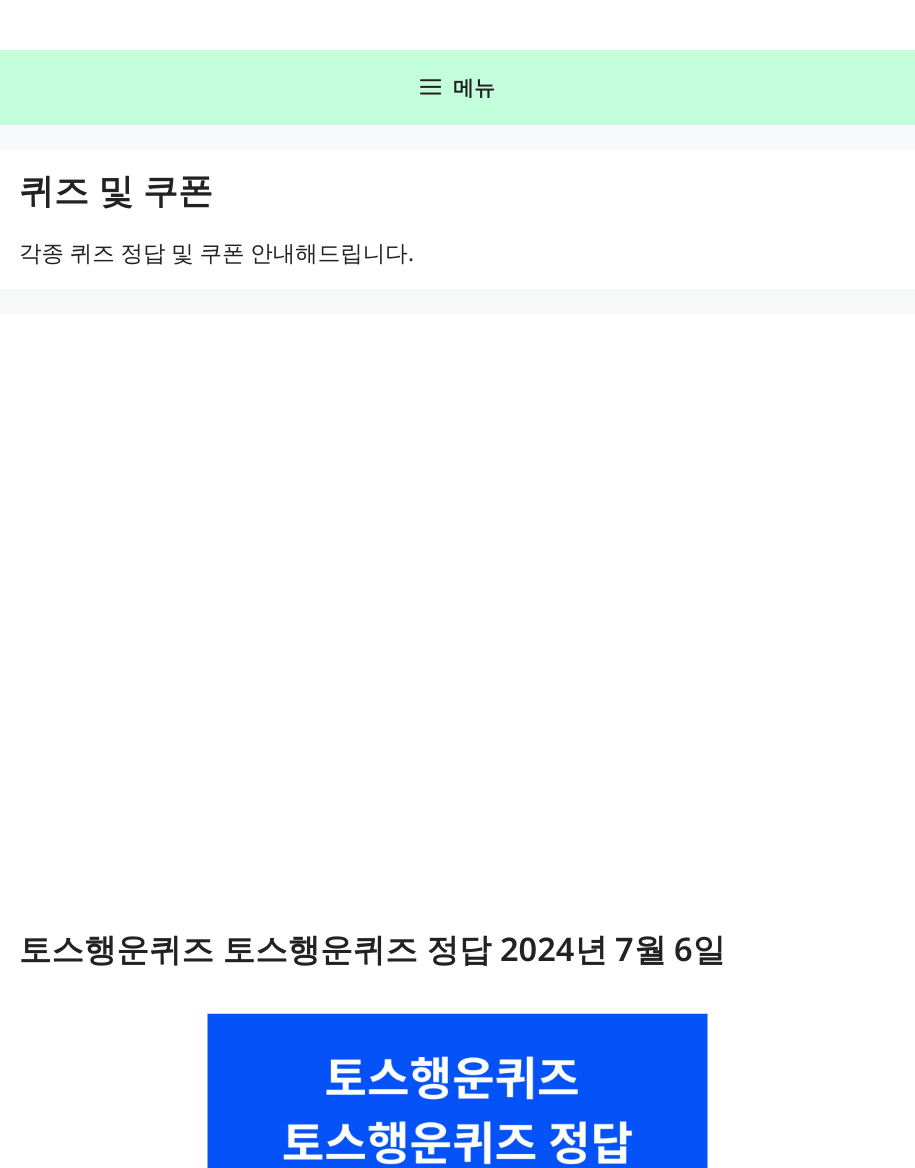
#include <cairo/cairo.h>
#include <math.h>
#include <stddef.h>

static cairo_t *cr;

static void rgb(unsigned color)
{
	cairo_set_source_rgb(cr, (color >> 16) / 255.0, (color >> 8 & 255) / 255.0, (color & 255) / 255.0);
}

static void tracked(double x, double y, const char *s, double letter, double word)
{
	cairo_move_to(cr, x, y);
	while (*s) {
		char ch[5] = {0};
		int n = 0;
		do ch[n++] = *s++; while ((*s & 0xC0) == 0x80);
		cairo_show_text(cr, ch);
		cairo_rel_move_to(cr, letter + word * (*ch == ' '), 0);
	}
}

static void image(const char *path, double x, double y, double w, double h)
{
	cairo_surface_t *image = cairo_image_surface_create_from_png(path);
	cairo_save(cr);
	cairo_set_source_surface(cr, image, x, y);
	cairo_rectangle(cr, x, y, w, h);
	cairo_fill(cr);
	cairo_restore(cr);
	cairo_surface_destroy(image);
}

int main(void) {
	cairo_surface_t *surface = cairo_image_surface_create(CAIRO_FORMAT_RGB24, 915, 1168);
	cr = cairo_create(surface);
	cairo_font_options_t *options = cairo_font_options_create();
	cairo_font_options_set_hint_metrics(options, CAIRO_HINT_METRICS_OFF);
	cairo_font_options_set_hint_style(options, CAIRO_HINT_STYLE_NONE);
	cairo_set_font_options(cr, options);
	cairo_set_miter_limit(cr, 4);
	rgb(0xf7f8f9);
	cairo_paint(cr);
	rgb(0xffffff);
	cairo_rectangle(cr, 0, 0, 915, 50);
	cairo_fill(cr);
	rgb(0xc4ffdc);
	cairo_rectangle(cr, 0, 50, 915, 75);
	cairo_fill(cr);
	image("img/1.png", 420, 79, 21, 16);
	rgb(0xffffff);
	cairo_rectangle(cr, 0, 150, 915, 139);
	cairo_fill(cr);
	cairo_rectangle(cr, 0, 314, 915, 854);
	cairo_fill(cr);
	image("img/2.png", 207, 1013, 501, 155);
	cairo_select_font_face(cr, "WenQuanYi Zen Hei", CAIRO_FONT_SLANT_NORMAL, CAIRO_FONT_WEIGHT_BOLD);
	cairo_set_font_size(cr, 21);
	rgb(0x222222);
	cairo_move_to(cr, 453, 95);
	cairo_show_text(cr, "메뉴");
	cairo_set_font_size(cr, 35);
	tracked(19, 203, "퀴즈 및 쿠폰", 0, -1);
	cairo_select_font_face(cr, "WenQuanYi Zen Hei Medium", CAIRO_FONT_SLANT_NORMAL, CAIRO_FONT_WEIGHT_NORMAL);
	cairo_set_font_size(cr, 22.5);
	tracked(19, 261, "각종 퀴즈 정답 및 쿠폰 안내해드립니다", 0, -1);
	cairo_select_font_face(cr, "Noto Sans", CAIRO_FONT_SLANT_NORMAL, CAIRO_FONT_WEIGHT_NORMAL);
	cairo_move_to(cr, 408, 261);
	cairo_show_text(cr, ".");
	cairo_select_font_face(cr, "WenQuanYi Zen Hei", CAIRO_FONT_SLANT_NORMAL, CAIRO_FONT_WEIGHT_BOLD);
	cairo_set_font_size(cr, 32.5);
	tracked(19, 961, "토스행운퀴즈 토스행운퀴즈 정답", 0, -1);
	cairo_select_font_face(cr, "Noto Sans SemiBold", CAIRO_FONT_SLANT_NORMAL, CAIRO_FONT_WEIGHT_NORMAL);
	cairo_move_to(cr, 500, 961);
	cairo_show_text(cr, "2024");
	cairo_select_font_face(cr, "WenQuanYi Zen Hei", CAIRO_FONT_SLANT_NORMAL, CAIRO_FONT_WEIGHT_BOLD);
	cairo_move_to(cr, 575, 961);
	cairo_show_text(cr, "년");
	cairo_select_font_face(cr, "Noto Sans SemiBold", CAIRO_FONT_SLANT_NORMAL, CAIRO_FONT_WEIGHT_NORMAL);
	cairo_move_to(cr, 615, 961);
	cairo_show_text(cr, "7");
	cairo_select_font_face(cr, "WenQuanYi Zen Hei", CAIRO_FONT_SLANT_NORMAL, CAIRO_FONT_WEIGHT_BOLD);
	cairo_move_to(cr, 634, 961);
	cairo_show_text(cr, "월");
	cairo_select_font_face(cr, "Noto Sans SemiBold", CAIRO_FONT_SLANT_NORMAL, CAIRO_FONT_WEIGHT_NORMAL);
	cairo_move_to(cr, 674, 961);
	cairo_show_text(cr, "6");
	cairo_select_font_face(cr, "WenQuanYi Zen Hei", CAIRO_FONT_SLANT_NORMAL, CAIRO_FONT_WEIGHT_BOLD);
	cairo_move_to(cr, 693, 961);
	cairo_show_text(cr, "일");
	cairo_surface_write_to_png(surface, "page.png");
	cairo_font_options_destroy(options);
	cairo_destroy(cr);
	cairo_surface_destroy(surface);
	return 0;
}
